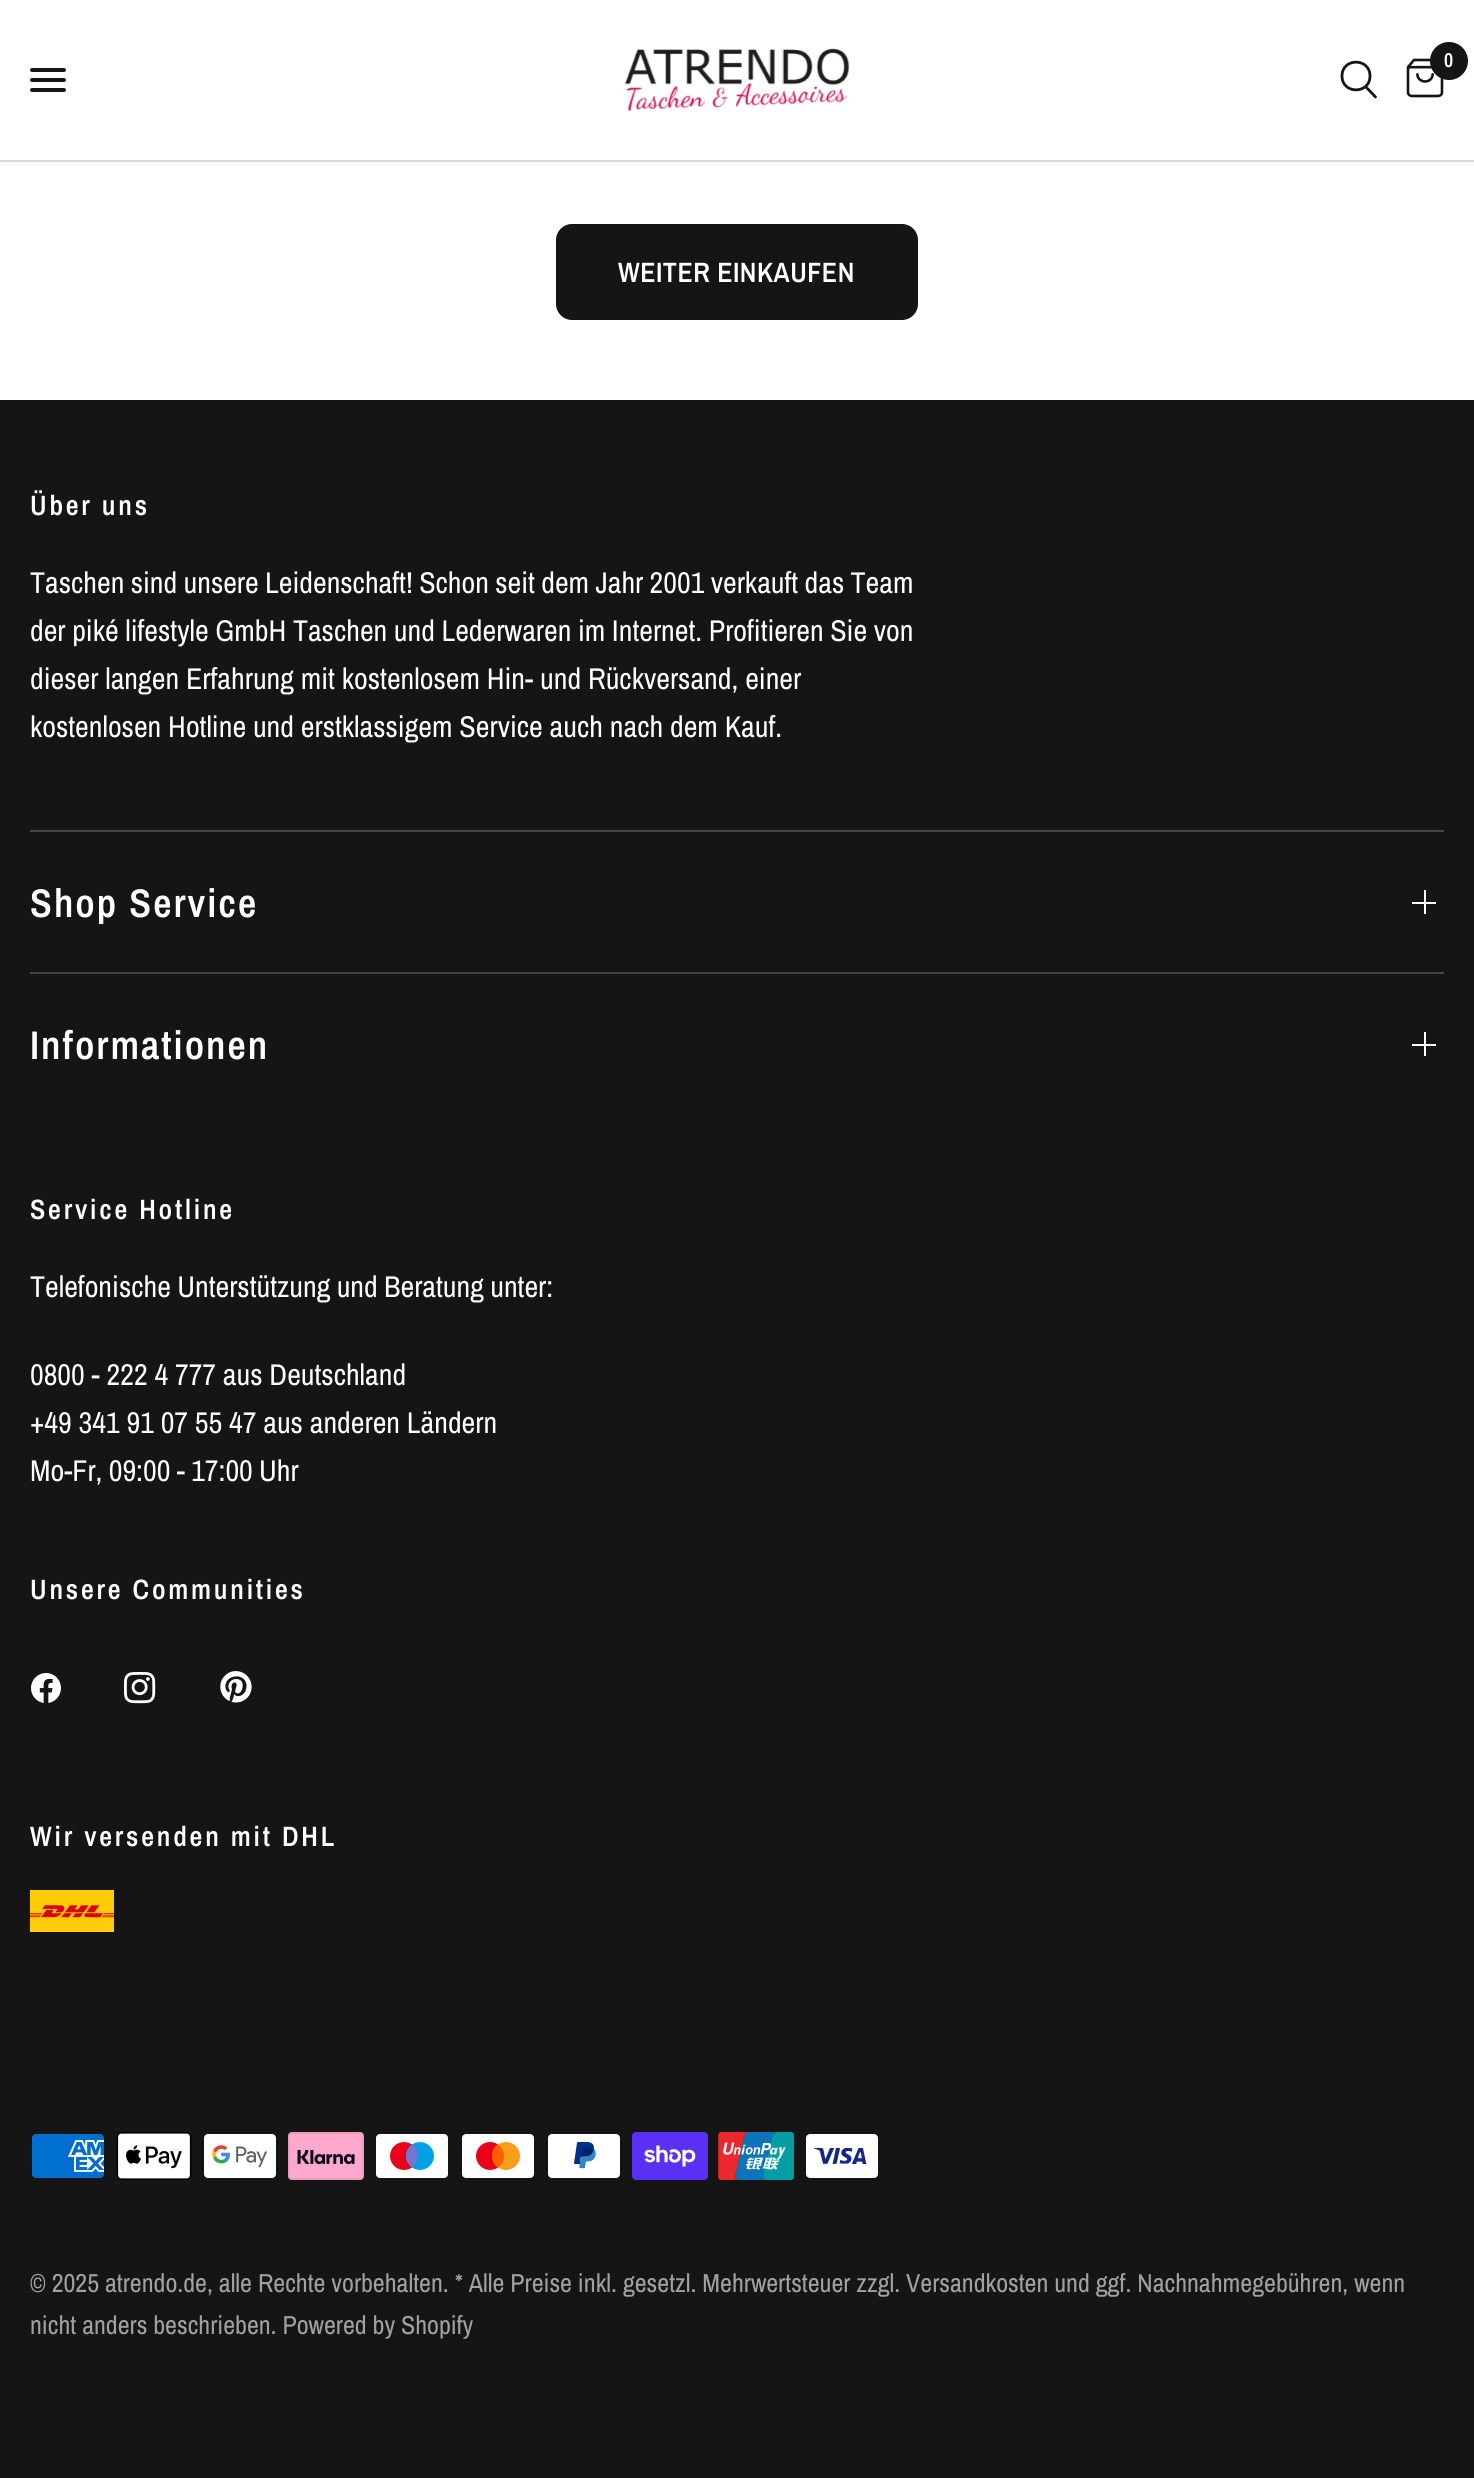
#include <cairo/cairo.h>
#include <math.h>
#include <stddef.h>

typedef struct { double x, y, w, h; unsigned color; } box_t;
static cairo_t *cr;

static void rgb(unsigned color)
{
	cairo_set_source_rgb(cr, (color >> 16) / 255.0, (color >> 8 & 255) / 255.0, (color & 255) / 255.0);
}

static void tracked(double x, double y, const char *s, double letter, double word)
{
	cairo_move_to(cr, x, y);
	while (*s) {
		char ch[5] = {0};
		int n = 0;
		do ch[n++] = *s++; while ((*s & 0xC0) == 0x80);
		cairo_show_text(cr, ch);
		cairo_rel_move_to(cr, letter + word * (*ch == ' '), 0);
	}
}

static void rrect(double x, double y, double w, double h, double r)
{
	cairo_new_sub_path(cr);
	cairo_arc(cr, x + w - r, y + h - r, r, 0, M_PI / 2);
	cairo_arc(cr, x + r, y + h - r, r, M_PI / 2, M_PI);
	cairo_arc(cr, x + r, y + r, r, M_PI, 1.5 * M_PI);
	cairo_arc(cr, x + w - r, y + r, r, 1.5 * M_PI, 2 * M_PI);
	cairo_close_path(cr);
}

static void soft_shadow(double x, double y, double w, double h, double r, double blur, double alpha)
{
	cairo_push_group_with_content(cr, CAIRO_CONTENT_ALPHA);
	cairo_set_operator(cr, CAIRO_OPERATOR_SOURCE);
	for (int i = 15; i >= -15 && fmin(w, h) + blur * i / 3 > 0; i -= 2) {
		double e = blur * i / 6;
		cairo_set_source_rgba(cr, 0, 0, 0, alpha * erfc((i - 1) / 8.5) / 2);
		rrect(x - e, y - e, w + 2 * e, h + 2 * e, fmax(0, fmin(r + e + blur * .6, fmin(w, h) / 2 + e)));
		cairo_fill(cr);
	}
	cairo_pattern_t *soft = cairo_pop_group(cr);
	cairo_mask(cr, soft);
	cairo_pattern_destroy(soft);
}

static void image(const char *path, double x, double y, double w, double h)
{
	cairo_surface_t *image = cairo_image_surface_create_from_png(path);
	cairo_save(cr);
	cairo_set_source_surface(cr, image, x, y);
	cairo_rectangle(cr, x, y, w, h);
	cairo_fill(cr);
	cairo_restore(cr);
	cairo_surface_destroy(image);
}

int main(void) {
	cairo_surface_t *surface = cairo_image_surface_create(CAIRO_FORMAT_RGB24, 1474, 2478);
	cr = cairo_create(surface);
	cairo_font_options_t *options = cairo_font_options_create();
	cairo_font_options_set_hint_metrics(options, CAIRO_HINT_METRICS_OFF);
	cairo_font_options_set_hint_style(options, CAIRO_HINT_STYLE_NONE);
	cairo_set_font_options(cr, options);
	cairo_set_miter_limit(cr, 4);
	rgb(0xffffff);
	cairo_paint(cr);
	rgb(0xe2e2e2);
	cairo_rectangle(cr, 0, 160, 1474, 2);
	cairo_fill(cr);
	cairo_save(cr);
	cairo_rectangle(cr, 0, 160, 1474, 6);
	cairo_clip(cr);
	rgb(0x000000);
	soft_shadow(0, 4, 1474, 160, 0, 5, 0.06);
	cairo_restore(cr);
	image("img/1.png", 624, 48, 226, 64);
	cairo_new_path(cr);
	cairo_move_to(cr, 1366, 87);
	cairo_line_to(cr, 1375.5, 97);
	cairo_move_to(cr, 1370, 76);
	cairo_curve_to(cr, 1370, 94.5, 1342, 94.5, 1342, 76);
	cairo_curve_to(cr, 1342, 57.5, 1370, 57.5, 1370, 76);
	cairo_close_path(cr);
	rgb(0x151515);
	cairo_set_line_width(cr, 2.8);
	cairo_set_line_cap(cr, CAIRO_LINE_CAP_ROUND);
	cairo_set_line_join(cr, CAIRO_LINE_JOIN_ROUND);
	cairo_stroke(cr);
	image("img/2.png", 1406, 58, 38, 40);
	cairo_arc(cr, 1449, 61, 19, 0, 2 * M_PI);
	cairo_fill(cr);
	rrect(30, 68, 36, 4, 2);
	cairo_fill(cr);
	rrect(30, 78, 36, 4, 2);
	cairo_fill(cr);
	rrect(30, 88, 36, 4, 2);
	cairo_fill(cr);
	rrect(557, 225, 360, 94, 15);
	cairo_fill_preserve(cr);
	cairo_set_line_width(cr, 2);
	cairo_set_line_cap(cr, CAIRO_LINE_CAP_BUTT);
	cairo_set_line_join(cr, CAIRO_LINE_JOIN_MITER);
	cairo_stroke(cr);
	{
		static const box_t items[] = {
			{0, 400, 1474, 2078, 0x151515},
			{30, 830, 1414, 2, 0x444444},
			{1424, 890, 2, 24, 0xffffff},
			{1412, 902, 24, 2, 0xffffff},
			{30, 972, 1414, 2, 0x444444},
			{1424, 1032, 2, 24, 0xffffff},
			{1412, 1044, 24, 2, 0xffffff},
		};
		for (size_t i = 0; i < sizeof items / sizeof *items; i++) {
			rgb(items[i].color);
			cairo_rectangle(cr, items[i].x, items[i].y, items[i].w, items[i].h);
			cairo_fill(cr);
		}
	}
	image("img/3.png", 31, 1673, 30, 30);
	image("img/4.png", 124, 1672, 32, 32);
	image("img/5.png", 220, 1671, 32, 32);
	image("img/6.png", 30, 1890, 84, 42);
	image("img/7.png", 32, 2134, 72, 44);
	image("img/8.png", 116, 2132, 76, 48);
	image("img/9.png", 204, 2134, 72, 44);
	image("img/10.png", 288, 2132, 76, 48);
	image("img/11.png", 376, 2134, 72, 44);
	image("img/12.png", 462, 2134, 72, 44);
	image("img/13.png", 548, 2134, 72, 44);
	image("img/14.png", 632, 2132, 76, 48);
	image("img/15.png", 718, 2132, 76, 48);
	image("img/16.png", 806, 2134, 72, 44);
	cairo_select_font_face(cr, "Archivo Narrow SemiBold", CAIRO_FONT_SLANT_NORMAL, CAIRO_FONT_WEIGHT_NORMAL);
	cairo_set_font_size(cr, 20);
	cairo_move_to(cr, 1444, 67);
	cairo_show_text(cr, "0");
	cairo_set_font_size(cr, 28);
	tracked(618, 282, "WEITER EINKAUFEN", 0.5, 0);
	tracked(30, 515, "Über uns", 2.8, 0);
	cairo_select_font_face(cr, "Archivo Narrow", CAIRO_FONT_SLANT_NORMAL, CAIRO_FONT_WEIGHT_NORMAL);
	cairo_set_font_size(cr, 30);
	tracked(30, 593, "Taschen sind unsere Leidenschaft! Schon seit dem Jahr 2001 verkauft das Team", 0, -0.5);
	tracked(30, 641, "der piké lifestyle GmbH Taschen und Lederwaren im Internet. Profitieren Sie von", 0, -0.25);
	cairo_move_to(cr, 30, 689);
	cairo_show_text(cr, "dieser langen Erfahrung mit kostenlosem Hin- und Rückversand, einer");
	cairo_move_to(cr, 30, 737);
	cairo_show_text(cr, "kostenlosen Hotline und erstklassigem Service auch nach dem Kauf.");
	cairo_select_font_face(cr, "Archivo Narrow SemiBold", CAIRO_FONT_SLANT_NORMAL, CAIRO_FONT_WEIGHT_NORMAL);
	cairo_set_font_size(cr, 40);
	tracked(30, 917, "Shop Service", 2, 0);
	tracked(30, 1059, "Informationen", 2, 0);
	cairo_set_font_size(cr, 28);
	tracked(30, 1219, "Service Hotline", 2.8, 0);
	cairo_select_font_face(cr, "Archivo Narrow", CAIRO_FONT_SLANT_NORMAL, CAIRO_FONT_WEIGHT_NORMAL);
	cairo_set_font_size(cr, 30);
	tracked(30, 1297, "Telefonische Unterstützung und Beratung unter:", 0, -0.5);
	cairo_move_to(cr, 30, 1385);
	cairo_show_text(cr, "0800 - 222 4 777 aus Deutschland");
	cairo_move_to(cr, 30, 1433);
	cairo_show_text(cr, "+49 341 91 07 55 47 aus anderen Ländern");
	tracked(30, 1481, "Mo-Fr, 09:00 - 17:00 Uhr", 0, -0.5);
	cairo_select_font_face(cr, "Archivo Narrow SemiBold", CAIRO_FONT_SLANT_NORMAL, CAIRO_FONT_WEIGHT_NORMAL);
	cairo_set_font_size(cr, 28);
	tracked(30, 1599, "Unsere Communities", 2.8, 0);
	tracked(30, 1846, "Wir versenden mit DHL", 2.8, 0);
	cairo_select_font_face(cr, "Archivo Narrow", CAIRO_FONT_SLANT_NORMAL, CAIRO_FONT_WEIGHT_NORMAL);
	cairo_set_font_size(cr, 26);
	rgb(0xa1a1a1);
	cairo_move_to(cr, 30, 2292);
	cairo_show_text(cr, "© 2025 atrendo.de, alle Rechte vorbehalten. * Alle Preise inkl. gesetzl. Mehrwertsteuer zzgl. Versandkosten und ggf. Nachnahmegebühren, wenn");
	cairo_move_to(cr, 30, 2334);
	cairo_show_text(cr, "nicht anders beschrieben. Powered by Shopify");
	cairo_surface_write_to_png(surface, "page.png");
	cairo_font_options_destroy(options);
	cairo_destroy(cr);
	cairo_surface_destroy(surface);
	return 0;
}
